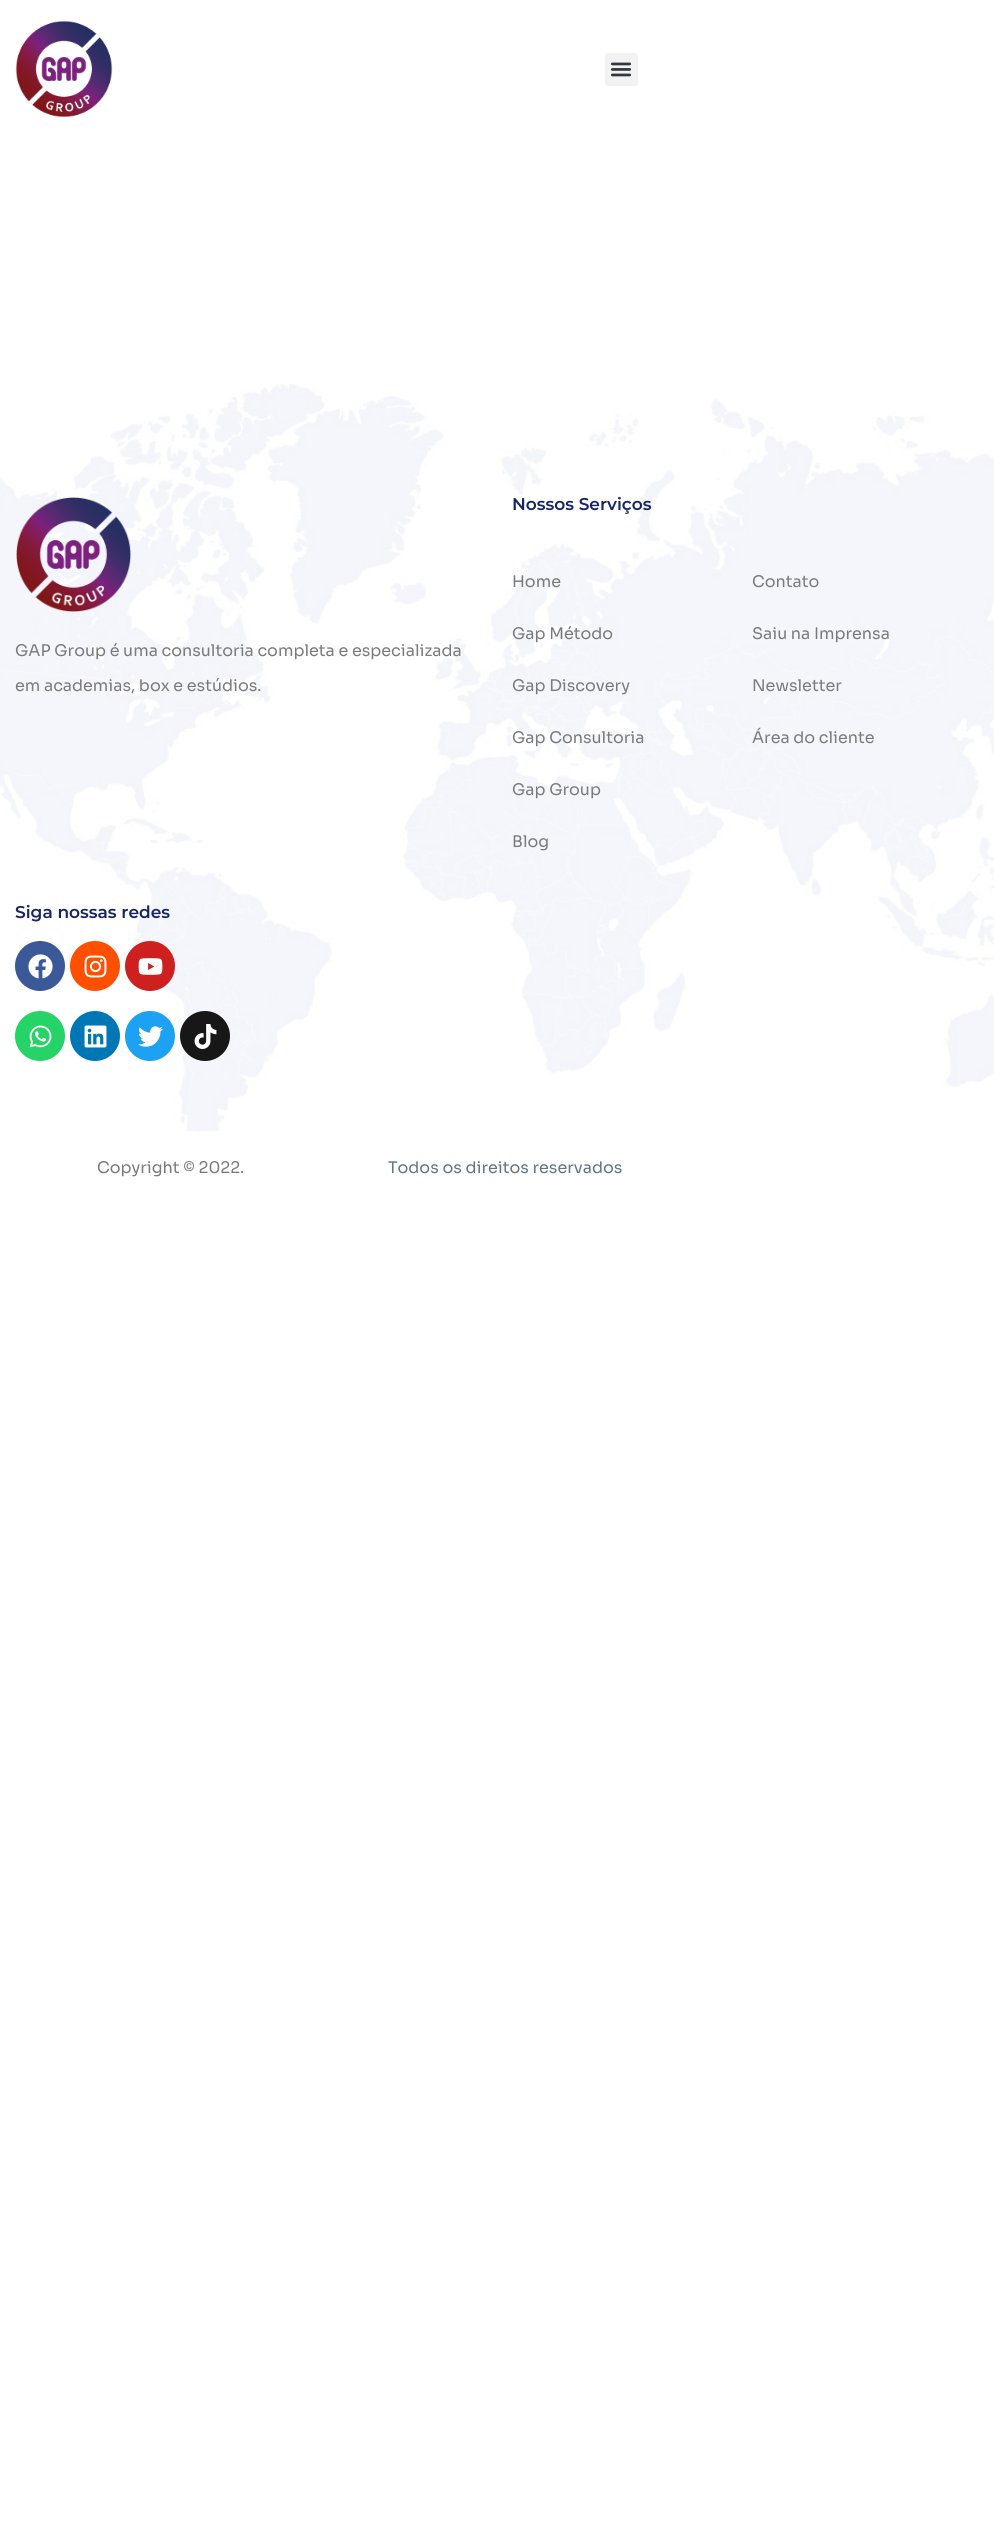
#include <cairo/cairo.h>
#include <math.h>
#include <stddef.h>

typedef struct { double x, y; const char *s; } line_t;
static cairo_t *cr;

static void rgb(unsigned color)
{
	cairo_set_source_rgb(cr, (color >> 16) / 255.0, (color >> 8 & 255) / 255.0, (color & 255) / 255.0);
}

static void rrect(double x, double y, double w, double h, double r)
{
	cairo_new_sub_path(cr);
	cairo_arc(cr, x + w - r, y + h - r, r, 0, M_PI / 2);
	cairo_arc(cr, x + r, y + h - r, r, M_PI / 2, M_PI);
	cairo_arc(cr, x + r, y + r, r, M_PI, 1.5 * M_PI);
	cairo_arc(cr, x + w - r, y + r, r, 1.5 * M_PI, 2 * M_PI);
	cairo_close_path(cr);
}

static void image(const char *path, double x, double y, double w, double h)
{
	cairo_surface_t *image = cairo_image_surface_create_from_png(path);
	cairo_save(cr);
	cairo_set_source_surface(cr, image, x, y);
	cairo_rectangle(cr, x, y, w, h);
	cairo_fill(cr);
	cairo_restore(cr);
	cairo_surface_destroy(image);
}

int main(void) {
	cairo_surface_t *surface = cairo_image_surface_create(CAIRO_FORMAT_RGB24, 994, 2523);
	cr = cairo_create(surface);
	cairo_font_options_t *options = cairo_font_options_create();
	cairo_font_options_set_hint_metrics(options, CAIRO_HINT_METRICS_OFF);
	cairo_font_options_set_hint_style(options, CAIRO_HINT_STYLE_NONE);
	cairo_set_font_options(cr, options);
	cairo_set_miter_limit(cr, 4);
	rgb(0xffffff);
	cairo_paint(cr);
	image("img/1.png", 15, 20, 98, 98);
	rgb(0xf2f2f2);
	rrect(605, 53, 33, 33, 3);
	cairo_fill(cr);
	image("img/2.png", 610, 62, 22, 15);
	image("img/3.png", 0, 384, 994, 747);
	image("img/4.png", 16, 497, 115, 115);
	rgb(0x3b5998);
	cairo_arc(cr, 40, 966, 25, 0, 2 * M_PI);
	cairo_fill(cr);
	image("img/5.png", 28, 954, 25, 25);
	rgb(0xff5000);
	cairo_arc(cr, 95, 966, 25, 0, 2 * M_PI);
	cairo_fill(cr);
	image("img/6.png", 84, 955, 23, 23);
	rgb(0xcd201f);
	cairo_arc(cr, 150, 966, 25, 0, 2 * M_PI);
	cairo_fill(cr);
	image("img/7.png", 138, 958, 25, 17);
	rgb(0x25d366);
	cairo_arc(cr, 40, 1036, 25, 0, 2 * M_PI);
	cairo_fill(cr);
	image("img/8.png", 29, 1025, 23, 23);
	rgb(0x0077b5);
	cairo_arc(cr, 95, 1036, 25, 0, 2 * M_PI);
	cairo_fill(cr);
	image("img/9.png", 84, 1025, 23, 23);
	rgb(0x1da1f2);
	cairo_arc(cr, 150, 1036, 25, 0, 2 * M_PI);
	cairo_fill(cr);
	image("img/10.png", 138, 1026, 25, 21);
	rgb(0x171717);
	cairo_arc(cr, 205, 1036, 25, 0, 2 * M_PI);
	cairo_fill(cr);
	image("img/11.png", 194, 1024, 23, 25);
	cairo_select_font_face(cr, "Sora", CAIRO_FONT_SLANT_NORMAL, CAIRO_FONT_WEIGHT_NORMAL);
	cairo_set_font_size(cr, 16);
	rgb(0x7a7a7a);
	cairo_move_to(cr, 15, 656);
	cairo_show_text(cr, "GAP Group é uma consultoria completa e especializada");
	cairo_move_to(cr, 15, 691);
	cairo_show_text(cr, "em academias, box e estúdios.");
	cairo_select_font_face(cr, "Montserrat SemiBold", CAIRO_FONT_SLANT_NORMAL, CAIRO_FONT_WEIGHT_NORMAL);
	cairo_set_font_size(cr, 17);
	rgb(0x182468);
	cairo_move_to(cr, 512, 510);
	cairo_show_text(cr, "Nossos Serviços");
	cairo_select_font_face(cr, "Sora", CAIRO_FONT_SLANT_NORMAL, CAIRO_FONT_WEIGHT_NORMAL);
	cairo_set_font_size(cr, 16);
	rgb(0x7a7a7a);
	{
		static const line_t items[] = {
			{512, 587, "Home"},
			{512, 639, "Gap Método"},
			{512, 691, "Gap Discovery"},
			{512, 743, "Gap Consultoria"},
			{512, 795, "Gap Group"},
			{512, 847, "Blog"},
			{752, 587, "Contato"},
			{752, 639, "Saiu na Imprensa"},
			{752, 691, "Newsletter"},
			{752, 743, "Área do cliente"},
		};
		for (size_t i = 0; i < sizeof items / sizeof *items; i++) {
			cairo_move_to(cr, items[i].x, items[i].y);
			cairo_show_text(cr, items[i].s);
		}
	}
	cairo_select_font_face(cr, "Montserrat SemiBold", CAIRO_FONT_SLANT_NORMAL, CAIRO_FONT_WEIGHT_NORMAL);
	cairo_set_font_size(cr, 17);
	rgb(0x182468);
	cairo_move_to(cr, 15, 918);
	cairo_show_text(cr, "Siga nossas redes");
	cairo_select_font_face(cr, "Sora", CAIRO_FONT_SLANT_NORMAL, CAIRO_FONT_WEIGHT_NORMAL);
	cairo_set_font_size(cr, 16);
	rgb(0x7a7a7a);
	cairo_move_to(cr, 97, 1173);
	cairo_show_text(cr, "Copyright © 2022.");
	rgb(0x5f7586);
	cairo_move_to(cr, 388, 1173);
	cairo_show_text(cr, "Todos os direitos reservados");
	cairo_surface_write_to_png(surface, "page.png");
	cairo_font_options_destroy(options);
	cairo_destroy(cr);
	cairo_surface_destroy(surface);
	return 0;
}
